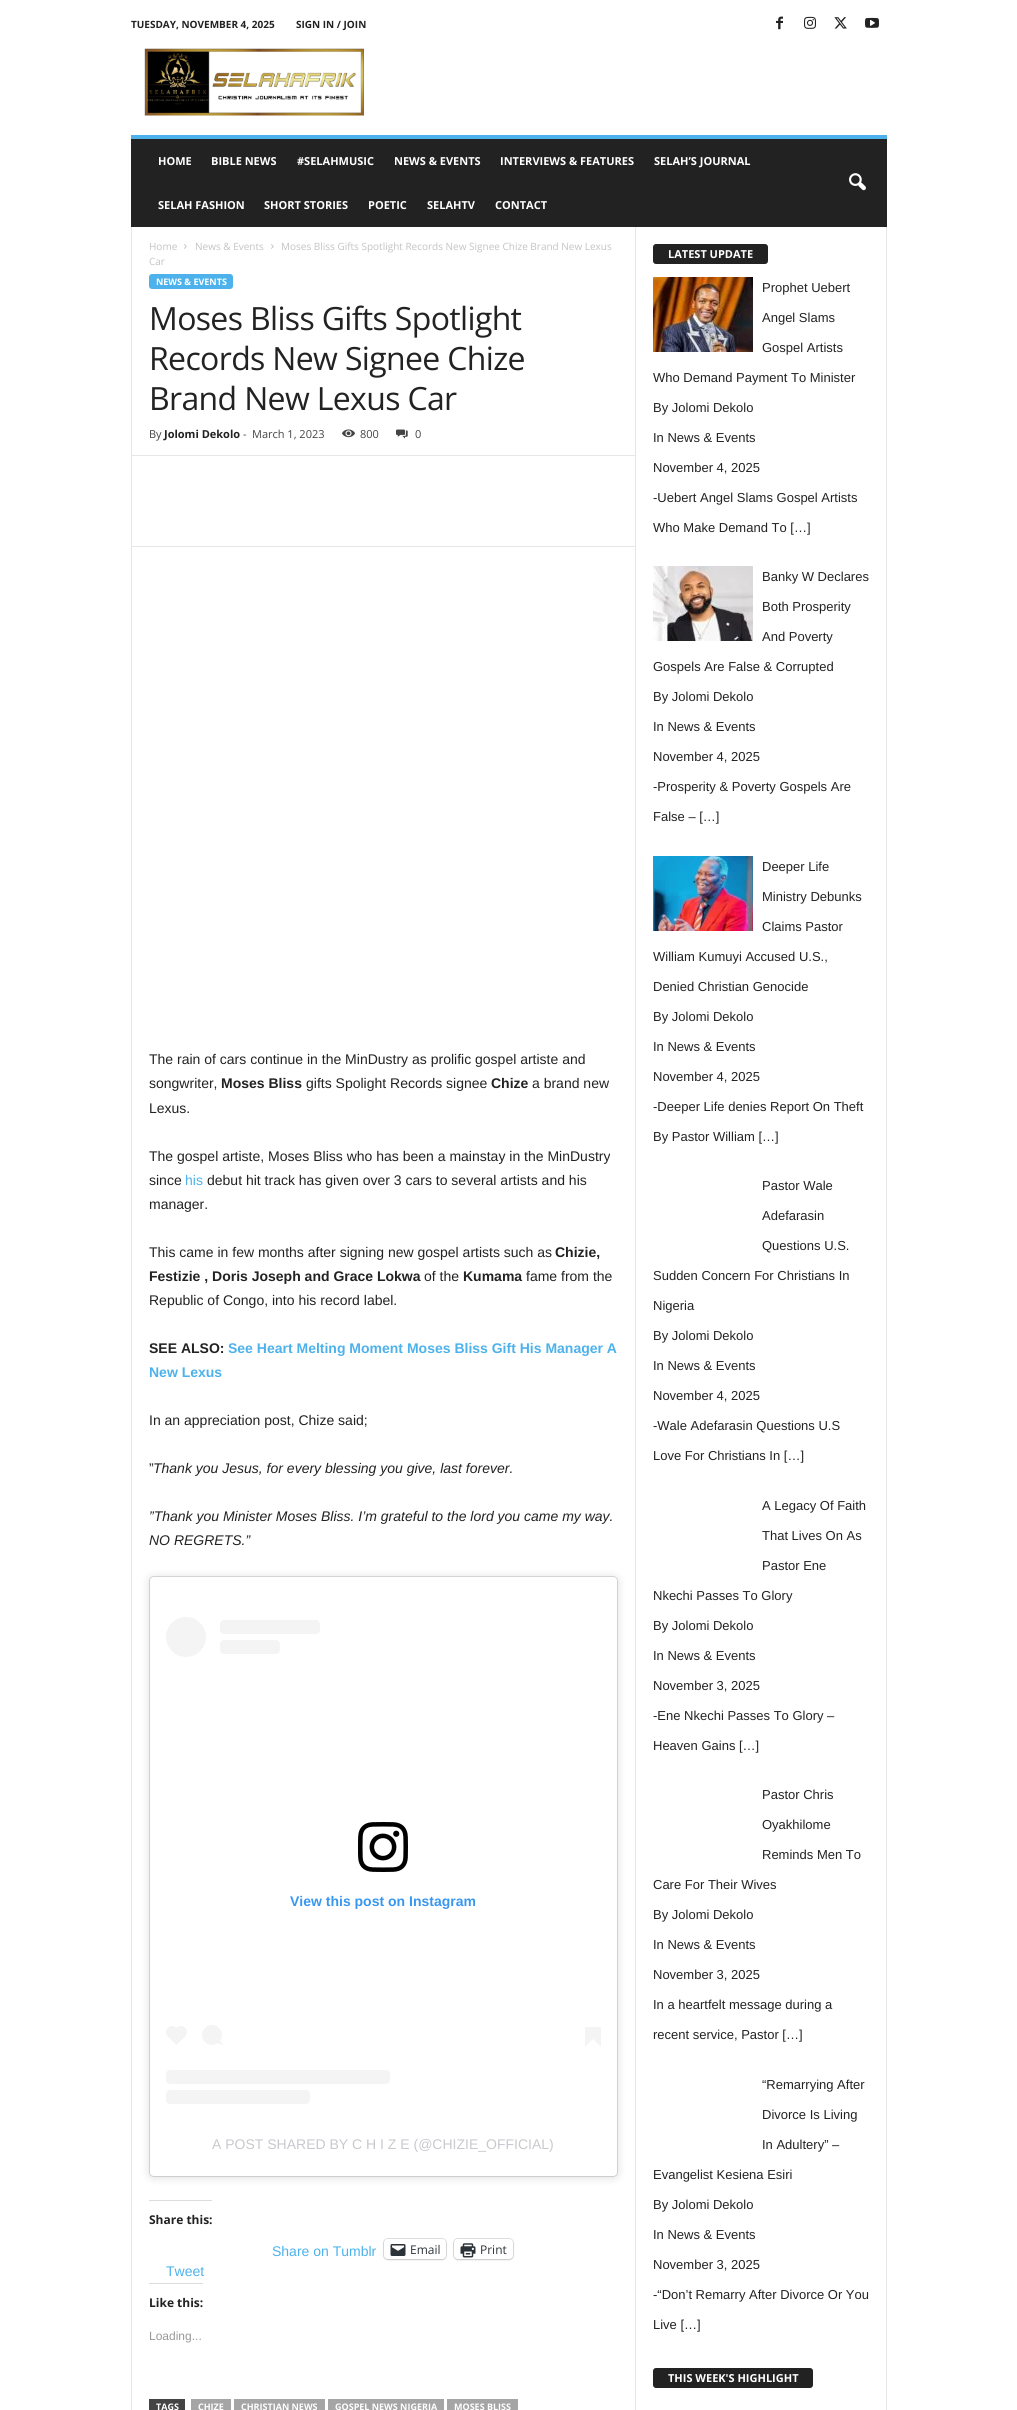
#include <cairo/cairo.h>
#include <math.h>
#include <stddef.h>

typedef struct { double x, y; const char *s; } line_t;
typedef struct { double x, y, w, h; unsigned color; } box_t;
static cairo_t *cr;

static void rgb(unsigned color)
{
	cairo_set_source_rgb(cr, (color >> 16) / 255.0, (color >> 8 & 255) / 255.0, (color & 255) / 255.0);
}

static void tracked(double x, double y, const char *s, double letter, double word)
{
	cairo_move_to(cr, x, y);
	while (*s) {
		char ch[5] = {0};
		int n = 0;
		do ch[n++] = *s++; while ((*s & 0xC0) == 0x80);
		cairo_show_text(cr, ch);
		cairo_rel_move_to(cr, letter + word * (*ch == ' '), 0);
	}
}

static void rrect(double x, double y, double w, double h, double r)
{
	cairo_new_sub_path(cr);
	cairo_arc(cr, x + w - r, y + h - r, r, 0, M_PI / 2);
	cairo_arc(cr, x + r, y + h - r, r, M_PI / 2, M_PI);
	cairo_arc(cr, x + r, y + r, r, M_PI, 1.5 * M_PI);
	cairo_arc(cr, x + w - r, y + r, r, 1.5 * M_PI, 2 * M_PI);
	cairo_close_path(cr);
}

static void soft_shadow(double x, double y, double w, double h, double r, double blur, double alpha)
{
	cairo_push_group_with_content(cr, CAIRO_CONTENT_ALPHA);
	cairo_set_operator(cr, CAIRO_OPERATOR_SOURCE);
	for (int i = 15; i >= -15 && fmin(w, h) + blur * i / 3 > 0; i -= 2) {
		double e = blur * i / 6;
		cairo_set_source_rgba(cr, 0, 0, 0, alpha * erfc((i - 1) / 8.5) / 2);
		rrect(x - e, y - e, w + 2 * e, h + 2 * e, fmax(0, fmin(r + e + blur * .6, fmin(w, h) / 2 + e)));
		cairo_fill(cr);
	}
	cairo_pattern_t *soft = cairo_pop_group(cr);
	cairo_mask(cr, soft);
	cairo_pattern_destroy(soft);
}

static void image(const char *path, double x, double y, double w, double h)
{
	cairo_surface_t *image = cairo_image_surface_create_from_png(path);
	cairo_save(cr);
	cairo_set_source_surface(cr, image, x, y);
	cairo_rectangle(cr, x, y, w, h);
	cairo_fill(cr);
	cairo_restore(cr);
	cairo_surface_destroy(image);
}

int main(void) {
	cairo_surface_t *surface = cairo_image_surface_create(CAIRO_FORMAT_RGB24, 1017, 2410);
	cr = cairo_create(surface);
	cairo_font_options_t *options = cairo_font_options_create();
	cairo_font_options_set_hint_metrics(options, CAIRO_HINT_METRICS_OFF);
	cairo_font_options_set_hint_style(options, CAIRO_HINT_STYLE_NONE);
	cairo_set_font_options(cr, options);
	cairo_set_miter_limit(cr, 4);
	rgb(0xffffff);
	cairo_paint(cr);
	image("img/1.png", 776, 16, 7, 14);
	image("img/2.png", 804, 16, 12, 13);
	image("img/3.png", 834, 17, 13, 12);
	image("img/4.png", 865, 17, 14, 11);
	image("img/5.png", 144, 48, 220, 68);
	rgb(0x222222);
	cairo_rectangle(cr, 131, 139, 756, 88);
	cairo_fill(cr);
	rgb(0x4db2ec);
	cairo_rectangle(cr, 131, 135, 756, 4);
	cairo_fill(cr);
	image("img/6.png", 849, 173, 17, 18);
	rgb(0xe6e6e6);
	cairo_rectangle(cr, 131, 227, 1, 2183);
	cairo_fill(cr);
	image("img/7.png", 184, 244, 3, 5);
	image("img/7.png", 271, 244, 3, 5);
	rgb(0x4db2ec);
	rrect(149, 274, 84, 15, 3);
	cairo_fill(cr);
	image("img/8.png", 342, 429, 13, 9);
	image("img/9.png", 396, 429, 12, 10);
	rgb(0xe6e6e6);
	cairo_rectangle(cr, 132, 455, 503, 1);
	cairo_fill(cr);
	cairo_rectangle(cr, 132, 546, 503, 1);
	cairo_fill(cr);
	rgb(0x000000);
	soft_shadow(150, 1578, 467, 599, 3, 5, 0.15);
	soft_shadow(150, 1577, 467, 599, 3, 0.5, 0.5);
	rgb(0xffffff);
	rrect(150, 1577, 467, 599, 3);
	cairo_fill(cr);
	rgb(0xf4f4f4);
	cairo_arc(cr, 186, 1637, 20, 0, 2 * M_PI);
	cairo_fill(cr);
	rrect(220, 1620, 100, 14, 4);
	cairo_fill(cr);
	rrect(220, 1640, 60, 14, 4);
	cairo_fill(cr);
	image("img/10.png", 358, 1822, 50, 50);
	cairo_arc(cr, 172, 2032, 6, 0, 2 * M_PI);
	cairo_fill(cr);
	cairo_new_path(cr);
	cairo_move_to(cr, 167.5, 2036);
	cairo_line_to(cr, 176.5, 2027);
	cairo_line_to(cr, 185.5, 2036);
	cairo_line_to(cr, 176.5, 2045);
	cairo_close_path(cr);
	cairo_fill(cr);
	cairo_arc(cr, 181, 2032, 6, 0, 2 * M_PI);
	cairo_fill(cr);
	cairo_arc(cr, 212, 2035, 10, 0, 2 * M_PI);
	cairo_fill(cr);
	cairo_new_path(cr);
	cairo_move_to(cr, 217.5, 2043.5);
	cairo_line_to(cr, 219.5, 2040);
	cairo_line_to(cr, 223.5, 2045);
	cairo_close_path(cr);
	cairo_fill(cr);
	cairo_rectangle(cr, 585, 2027, 16, 12);
	cairo_fill(cr);
	cairo_new_path(cr);
	cairo_move_to(cr, 585, 2039);
	cairo_line_to(cr, 593, 2039);
	cairo_line_to(cr, 585, 2047);
	cairo_close_path(cr);
	cairo_fill(cr);
	cairo_new_path(cr);
	cairo_move_to(cr, 593, 2039);
	cairo_line_to(cr, 601, 2039);
	cairo_line_to(cr, 601, 2047);
	cairo_close_path(cr);
	cairo_fill(cr);
	rrect(166, 2070, 224, 14, 4);
	cairo_fill(cr);
	rrect(166, 2090, 144, 14, 4);
	cairo_fill(cr);
	rgb(0xdcdcde);
	cairo_rectangle(cr, 149, 2200, 63, 1);
	cairo_fill(cr);
	rrect(383.5, 2238.5, 63, 21, 4.5);
	rgb(0xe0e0e0);
	cairo_set_line_width(cr, 1);
	cairo_stroke(cr);
	rgb(0x000000);
	soft_shadow(384, 2240, 62, 20, 4, 1, 0.12);
	rgb(0xffffff);
	rrect(384, 2239, 62, 20, 4);
	cairo_fill(cr);
	image("img/11.png", 390, 2244, 16, 12);
	rrect(453.5, 2238.5, 60, 21, 4.5);
	rgb(0xe0e0e0);
	cairo_stroke(cr);
	rgb(0x000000);
	soft_shadow(454, 2240, 59, 20, 4, 1, 0.12);
	rgb(0xffffff);
	rrect(454, 2239, 59, 20, 4);
	cairo_fill(cr);
	image("img/12.png", 460, 2243, 16, 15);
	{
		static const box_t items[] = {
			{149, 2283, 54, 1, 0xdcdcde},
			{149, 2399, 36, 11, 0x444444},
			{191, 2399, 40, 11, 0xa5a5a5},
			{234, 2399, 91, 11, 0xa5a5a5},
			{328, 2399, 116, 11, 0xa5a5a5},
			{447, 2399, 71, 11, 0xa5a5a5},
			{635, 227, 1, 2183, 0xe6e6e6},
		};
		for (size_t i = 0; i < sizeof items / sizeof *items; i++) {
			rgb(items[i].color);
			cairo_rectangle(cr, items[i].x, items[i].y, items[i].w, items[i].h);
			cairo_fill(cr);
		}
	}
	rgb(0x222222);
	rrect(653, 244, 115, 20, 3);
	cairo_fill(cr);
	image("img/13.png", 653, 277, 100, 75);
	image("img/14.png", 653, 566, 100, 75);
	image("img/15.png", 653, 856, 100, 75);
	rrect(653, 2368, 160, 20, 3);
	cairo_fill(cr);
	rgb(0xe6e6e6);
	cairo_rectangle(cr, 886, 227, 1, 2183);
	cairo_fill(cr);
	cairo_select_font_face(cr, "Open Sans", CAIRO_FONT_SLANT_NORMAL, CAIRO_FONT_WEIGHT_BOLD);
	cairo_set_font_size(cr, 10);
	rgb(0x222222);
	cairo_move_to(cr, 131, 28);
	cairo_show_text(cr, "TUESDAY, NOVEMBER 4, 2025");
	cairo_move_to(cr, 296, 28);
	cairo_show_text(cr, "SIGN IN / JOIN");
	cairo_set_font_size(cr, 11);
	rgb(0xffffff);
	{
		static const line_t items[] = {
			{158, 165, "HOME"},
			{211, 165, "BIBLE NEWS"},
			{297, 165, "#SELAHMUSIC"},
			{394, 165, "NEWS & EVENTS"},
			{500, 165, "INTERVIEWS & FEATURES"},
			{654, 165, "SELAH’S JOURNAL"},
			{158, 209, "SELAH FASHION"},
			{264, 209, "SHORT STORIES"},
			{368, 209, "POETIC"},
			{427, 209, "SELAHTV"},
			{495, 209, "CONTACT"},
		};
		for (size_t i = 0; i < sizeof items / sizeof *items; i++) {
			cairo_move_to(cr, items[i].x, items[i].y);
			cairo_show_text(cr, items[i].s);
		}
	}
	cairo_select_font_face(cr, "Open Sans", CAIRO_FONT_SLANT_NORMAL, CAIRO_FONT_WEIGHT_NORMAL);
	cairo_set_font_size(cr, 10);
	rgb(0xc3c3c3);
	{
		static const line_t items[] = {
			{149, 250, "Home"},
			{195, 250, "News & Events"},
			{281, 250, "Moses Bliss Gifts Spotlight Records New Signee Chize Brand New Lexus"},
			{149, 265, "Car"},
		};
		for (size_t i = 0; i < sizeof items / sizeof *items; i++) {
			cairo_move_to(cr, items[i].x, items[i].y);
			cairo_show_text(cr, items[i].s);
		}
	}
	cairo_select_font_face(cr, "Open Sans", CAIRO_FONT_SLANT_NORMAL, CAIRO_FONT_WEIGHT_BOLD);
	cairo_set_font_size(cr, 9);
	rgb(0xffffff);
	cairo_move_to(cr, 156, 285);
	cairo_show_text(cr, "NEWS & EVENTS");
	cairo_select_font_face(cr, "Open Sans", CAIRO_FONT_SLANT_NORMAL, CAIRO_FONT_WEIGHT_NORMAL);
	cairo_set_font_size(cr, 32);
	rgb(0x222222);
	{
		static const line_t items[] = {
			{149, 330, "Moses Bliss Gifts Spotlight"},
			{149, 370, "Records New Signee Chize"},
			{149, 410, "Brand New Lexus Car"},
		};
		for (size_t i = 0; i < sizeof items / sizeof *items; i++) {
			tracked(items[i].x, items[i].y, items[i].s, -0.65, 0);
		}
	}
	cairo_set_font_size(cr, 11);
	rgb(0x444444);
	cairo_move_to(cr, 149, 438);
	cairo_show_text(cr, "By");
	cairo_select_font_face(cr, "Open Sans", CAIRO_FONT_SLANT_NORMAL, CAIRO_FONT_WEIGHT_BOLD);
	rgb(0x222222);
	cairo_move_to(cr, 164, 438);
	cairo_show_text(cr, "Jolomi Dekolo");
	cairo_select_font_face(cr, "Open Sans", CAIRO_FONT_SLANT_NORMAL, CAIRO_FONT_WEIGHT_NORMAL);
	rgb(0x444444);
	{
		static const line_t items[] = {
			{243, 438, "-"},
			{252, 438, "March 1, 2023"},
			{360, 438, "800"},
			{415, 438, "0"},
		};
		for (size_t i = 0; i < sizeof items / sizeof *items; i++) {
			cairo_move_to(cr, items[i].x, items[i].y);
			cairo_show_text(cr, items[i].s);
		}
	}
	cairo_select_font_face(cr, "Liberation Sans", CAIRO_FONT_SLANT_NORMAL, CAIRO_FONT_WEIGHT_NORMAL);
	cairo_set_font_size(cr, 14);
	rgb(0x222222);
	cairo_move_to(cr, 149, 1064);
	cairo_show_text(cr, "The rain of cars continue in the MinDustry as prolific gospel artiste and");
	cairo_move_to(cr, 149, 1088);
	cairo_show_text(cr, "songwriter,");
	cairo_select_font_face(cr, "Liberation Sans", CAIRO_FONT_SLANT_NORMAL, CAIRO_FONT_WEIGHT_BOLD);
	cairo_move_to(cr, 221, 1088);
	cairo_show_text(cr, "Moses Bliss");
	cairo_select_font_face(cr, "Liberation Sans", CAIRO_FONT_SLANT_NORMAL, CAIRO_FONT_WEIGHT_NORMAL);
	cairo_move_to(cr, 306, 1088);
	cairo_show_text(cr, "gifts Spolight Records signee");
	cairo_select_font_face(cr, "Liberation Sans", CAIRO_FONT_SLANT_NORMAL, CAIRO_FONT_WEIGHT_BOLD);
	cairo_move_to(cr, 491, 1088);
	cairo_show_text(cr, "Chize");
	cairo_select_font_face(cr, "Liberation Sans", CAIRO_FONT_SLANT_NORMAL, CAIRO_FONT_WEIGHT_NORMAL);
	{
		static const line_t items[] = {
			{532, 1088, "a brand new"},
			{149, 1113, "Lexus."},
			{149, 1161, "The gospel artiste, Moses Bliss who has been a mainstay in the MinDustry"},
			{149, 1185, "since"},
		};
		for (size_t i = 0; i < sizeof items / sizeof *items; i++) {
			cairo_move_to(cr, items[i].x, items[i].y);
			cairo_show_text(cr, items[i].s);
		}
	}
	rgb(0x4db2ec);
	cairo_move_to(cr, 185, 1185);
	cairo_show_text(cr, "his");
	rgb(0x222222);
	{
		static const line_t items[] = {
			{207, 1185, "debut hit track has given over 3 cars to several artists and his"},
			{149, 1209, "manager."},
			{149, 1257, "This came in few months after signing new gospel artists such as"},
		};
		for (size_t i = 0; i < sizeof items / sizeof *items; i++) {
			cairo_move_to(cr, items[i].x, items[i].y);
			cairo_show_text(cr, items[i].s);
		}
	}
	cairo_select_font_face(cr, "Liberation Sans", CAIRO_FONT_SLANT_NORMAL, CAIRO_FONT_WEIGHT_BOLD);
	cairo_move_to(cr, 555, 1257);
	cairo_show_text(cr, "Chizie,");
	cairo_move_to(cr, 149, 1281);
	cairo_show_text(cr, "Festizie , Doris Joseph and Grace Lokwa");
	cairo_select_font_face(cr, "Liberation Sans", CAIRO_FONT_SLANT_NORMAL, CAIRO_FONT_WEIGHT_NORMAL);
	cairo_move_to(cr, 424, 1281);
	cairo_show_text(cr, "of the");
	cairo_select_font_face(cr, "Liberation Sans", CAIRO_FONT_SLANT_NORMAL, CAIRO_FONT_WEIGHT_BOLD);
	cairo_move_to(cr, 463, 1281);
	cairo_show_text(cr, "Kumama");
	cairo_select_font_face(cr, "Liberation Sans", CAIRO_FONT_SLANT_NORMAL, CAIRO_FONT_WEIGHT_NORMAL);
	cairo_move_to(cr, 526, 1281);
	cairo_show_text(cr, "fame from the");
	cairo_move_to(cr, 149, 1305);
	cairo_show_text(cr, "Republic of Congo, into his record label.");
	cairo_select_font_face(cr, "Liberation Sans", CAIRO_FONT_SLANT_NORMAL, CAIRO_FONT_WEIGHT_BOLD);
	cairo_move_to(cr, 149, 1353);
	cairo_show_text(cr, "SEE ALSO:");
	rgb(0x4db2ec);
	cairo_move_to(cr, 228, 1353);
	cairo_show_text(cr, "See Heart Melting Moment Moses Bliss Gift His Manager A");
	cairo_move_to(cr, 149, 1377);
	cairo_show_text(cr, "New Lexus");
	cairo_select_font_face(cr, "Liberation Sans", CAIRO_FONT_SLANT_NORMAL, CAIRO_FONT_WEIGHT_NORMAL);
	rgb(0x222222);
	cairo_move_to(cr, 149, 1425);
	cairo_show_text(cr, "In an appreciation post, Chize said;");
	cairo_move_to(cr, 149, 1473);
	cairo_show_text(cr, "”");
	cairo_select_font_face(cr, "Liberation Sans", CAIRO_FONT_SLANT_ITALIC, CAIRO_FONT_WEIGHT_NORMAL);
	{
		static const line_t items[] = {
			{153, 1473, "Thank you Jesus, for every blessing you give, last forever."},
			{149, 1521, "”Thank you Minister Moses Bliss. I’m grateful to the lord you came my way."},
			{149, 1545, "NO REGRETS.”"},
		};
		for (size_t i = 0; i < sizeof items / sizeof *items; i++) {
			cairo_move_to(cr, items[i].x, items[i].y);
			cairo_show_text(cr, items[i].s);
		}
	}
	cairo_select_font_face(cr, "Liberation Sans", CAIRO_FONT_SLANT_NORMAL, CAIRO_FONT_WEIGHT_BOLD);
	rgb(0x3897f0);
	cairo_move_to(cr, 290, 1906);
	cairo_show_text(cr, "View this post on Instagram");
	cairo_select_font_face(cr, "Liberation Sans", CAIRO_FONT_SLANT_NORMAL, CAIRO_FONT_WEIGHT_NORMAL);
	rgb(0xc9c8cd);
	cairo_move_to(cr, 212, 2149);
	cairo_show_text(cr, "A POST SHARED BY C H I Z E (@CHIZIE_OFFICIAL)");
	cairo_select_font_face(cr, "Open Sans", CAIRO_FONT_SLANT_NORMAL, CAIRO_FONT_WEIGHT_BOLD);
	cairo_set_font_size(cr, 12);
	rgb(0x222222);
	cairo_move_to(cr, 149, 2224);
	cairo_show_text(cr, "Share this:");
	cairo_select_font_face(cr, "Liberation Sans", CAIRO_FONT_SLANT_NORMAL, CAIRO_FONT_WEIGHT_NORMAL);
	cairo_set_font_size(cr, 14);
	rgb(0x4db2ec);
	cairo_move_to(cr, 272, 2256);
	cairo_show_text(cr, "Share on Tumblr");
	cairo_select_font_face(cr, "Open Sans", CAIRO_FONT_SLANT_NORMAL, CAIRO_FONT_WEIGHT_NORMAL);
	cairo_set_font_size(cr, 12);
	rgb(0x2c3338);
	cairo_move_to(cr, 410, 2254);
	cairo_show_text(cr, "Email");
	cairo_move_to(cr, 480, 2254);
	cairo_show_text(cr, "Print");
	cairo_select_font_face(cr, "Liberation Sans", CAIRO_FONT_SLANT_NORMAL, CAIRO_FONT_WEIGHT_NORMAL);
	cairo_set_font_size(cr, 14);
	rgb(0x4db2ec);
	cairo_move_to(cr, 166, 2276);
	cairo_show_text(cr, "Tweet");
	cairo_select_font_face(cr, "Open Sans", CAIRO_FONT_SLANT_NORMAL, CAIRO_FONT_WEIGHT_BOLD);
	cairo_set_font_size(cr, 12);
	rgb(0x222222);
	cairo_move_to(cr, 149, 2307);
	cairo_show_text(cr, "Like this:");
	cairo_select_font_face(cr, "Liberation Sans", CAIRO_FONT_SLANT_NORMAL, CAIRO_FONT_WEIGHT_NORMAL);
	rgb(0x999999);
	cairo_move_to(cr, 149, 2340);
	cairo_show_text(cr, "Loading...");
	cairo_select_font_face(cr, "Open Sans", CAIRO_FONT_SLANT_NORMAL, CAIRO_FONT_WEIGHT_BOLD);
	cairo_set_font_size(cr, 9);
	rgb(0xffffff);
	{
		static const line_t items[] = {
			{156, 2410, "TAGS"},
			{198, 2410, "CHIZE"},
			{241, 2410, "CHRISTIAN NEWS"},
			{335, 2410, "GOSPEL NEWS NIGERIA"},
			{454, 2410, "MOSES BLISS"},
		};
		for (size_t i = 0; i < sizeof items / sizeof *items; i++) {
			cairo_move_to(cr, items[i].x, items[i].y);
			cairo_show_text(cr, items[i].s);
		}
	}
	cairo_set_font_size(cr, 11);
	cairo_move_to(cr, 668, 258);
	cairo_show_text(cr, "LATEST UPDATE");
	cairo_select_font_face(cr, "Liberation Sans", CAIRO_FONT_SLANT_NORMAL, CAIRO_FONT_WEIGHT_NORMAL);
	cairo_set_font_size(cr, 13);
	rgb(0x222222);
	{
		static const line_t items[] = {
			{762, 292, "Prophet Uebert"},
			{762, 322, "Angel Slams"},
			{762, 352, "Gospel Artists"},
			{653, 382, "Who Demand Payment To Minister"},
			{653, 412, "By Jolomi Dekolo"},
			{653, 442, "In News & Events"},
			{653, 472, "November 4, 2025"},
			{653, 502, "-Uebert Angel Slams Gospel Artists"},
			{653, 532, "Who Make Demand To […]"},
			{762, 581, "Banky W Declares"},
			{762, 611, "Both Prosperity"},
			{762, 641, "And Poverty"},
			{653, 671, "Gospels Are False & Corrupted"},
			{653, 701, "By Jolomi Dekolo"},
			{653, 731, "In News & Events"},
			{653, 761, "November 4, 2025"},
			{653, 791, "-Prosperity & Poverty Gospels Are"},
			{653, 821, "False – […]"},
			{762, 871, "Deeper Life"},
			{762, 901, "Ministry Debunks"},
			{762, 931, "Claims Pastor"},
			{653, 961, "William Kumuyi Accused U.S.,"},
			{653, 991, "Denied Christian Genocide"},
			{653, 1021, "By Jolomi Dekolo"},
			{653, 1051, "In News & Events"},
			{653, 1081, "November 4, 2025"},
			{653, 1111, "-Deeper Life denies Report On Theft"},
			{653, 1141, "By Pastor William […]"},
			{762, 1190, "Pastor Wale"},
			{762, 1220, "Adefarasin"},
			{762, 1250, "Questions U.S."},
			{653, 1280, "Sudden Concern For Christians In"},
			{653, 1310, "Nigeria"},
			{653, 1340, "By Jolomi Dekolo"},
			{653, 1370, "In News & Events"},
			{653, 1400, "November 4, 2025"},
			{653, 1430, "-Wale Adefarasin Questions U.S"},
			{653, 1460, "Love For Christians In […]"},
			{762, 1510, "A Legacy Of Faith"},
			{762, 1540, "That Lives On As"},
			{762, 1570, "Pastor Ene"},
			{653, 1600, "Nkechi Passes To Glory"},
			{653, 1630, "By Jolomi Dekolo"},
			{653, 1660, "In News & Events"},
			{653, 1690, "November 3, 2025"},
			{653, 1720, "-Ene Nkechi Passes To Glory –"},
			{653, 1750, "Heaven Gains […]"},
			{762, 1799, "Pastor Chris"},
			{762, 1829, "Oyakhilome"},
			{762, 1859, "Reminds Men To"},
			{653, 1889, "Care For Their Wives"},
			{653, 1919, "By Jolomi Dekolo"},
			{653, 1949, "In News & Events"},
			{653, 1979, "November 3, 2025"},
			{653, 2009, "In a heartfelt message during a"},
			{653, 2039, "recent service, Pastor […]"},
			{762, 2089, "“Remarrying After"},
			{762, 2119, "Divorce Is Living"},
			{762, 2149, "In Adultery” –"},
			{653, 2179, "Evangelist Kesiena Esiri"},
			{653, 2209, "By Jolomi Dekolo"},
			{653, 2239, "In News & Events"},
			{653, 2269, "November 3, 2025"},
			{653, 2299, "-“Don’t Remarry After Divorce Or You"},
			{653, 2329, "Live […]"},
		};
		for (size_t i = 0; i < sizeof items / sizeof *items; i++) {
			cairo_move_to(cr, items[i].x, items[i].y);
			cairo_show_text(cr, items[i].s);
		}
	}
	cairo_select_font_face(cr, "Open Sans", CAIRO_FONT_SLANT_NORMAL, CAIRO_FONT_WEIGHT_BOLD);
	cairo_set_font_size(cr, 11);
	rgb(0xffffff);
	cairo_move_to(cr, 668, 2382);
	cairo_show_text(cr, "THIS WEEK'S HIGHLIGHT");
	cairo_surface_write_to_png(surface, "page.png");
	cairo_font_options_destroy(options);
	cairo_destroy(cr);
	cairo_surface_destroy(surface);
	return 0;
}
